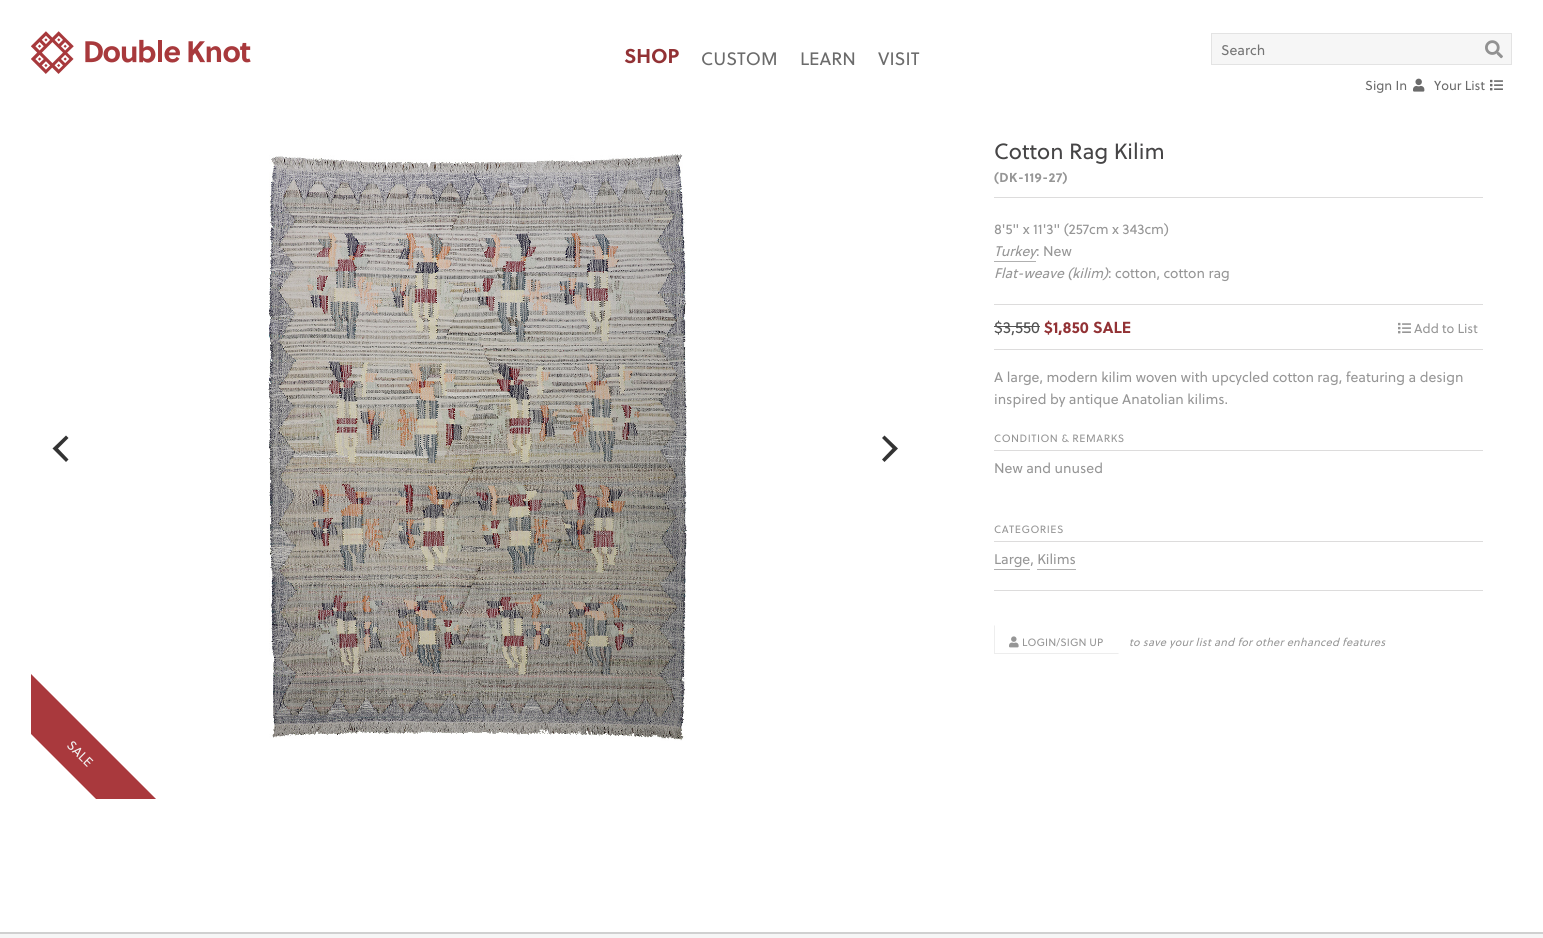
#include <cairo/cairo.h>
#include <math.h>
#include <stddef.h>

typedef struct { double x, y; const char *s; } line_t;
typedef struct { double x, y, w, h; unsigned color; } box_t;
static cairo_t *cr;

static void rgb(unsigned color)
{
	cairo_set_source_rgb(cr, (color >> 16) / 255.0, (color >> 8 & 255) / 255.0, (color & 255) / 255.0);
}

static void tracked(double x, double y, const char *s, double letter, double word)
{
	cairo_move_to(cr, x, y);
	while (*s) {
		char ch[5] = {0};
		int n = 0;
		do ch[n++] = *s++; while ((*s & 0xC0) == 0x80);
		cairo_show_text(cr, ch);
		cairo_rel_move_to(cr, letter + word * (*ch == ' '), 0);
	}
}

static void image(const char *path, double x, double y, double w, double h)
{
	cairo_surface_t *image = cairo_image_surface_create_from_png(path);
	cairo_save(cr);
	cairo_set_source_surface(cr, image, x, y);
	cairo_rectangle(cr, x, y, w, h);
	cairo_fill(cr);
	cairo_restore(cr);
	cairo_surface_destroy(image);
}

int main(void) {
	cairo_surface_t *surface = cairo_image_surface_create(CAIRO_FORMAT_RGB24, 1543, 938);
	cr = cairo_create(surface);
	cairo_font_options_t *options = cairo_font_options_create();
	cairo_font_options_set_hint_metrics(options, CAIRO_HINT_METRICS_OFF);
	cairo_font_options_set_hint_style(options, CAIRO_HINT_STYLE_NONE);
	cairo_set_font_options(cr, options);
	cairo_set_miter_limit(cr, 4);
	rgb(0xffffff);
	cairo_paint(cr);
	image("img/1.png", 31, 31, 220, 43);
	rgb(0xf6f6f6);
	cairo_rectangle(cr, 1211.5, 33.5, 300, 31);
	cairo_fill_preserve(cr);
	rgb(0xe3e3e3);
	cairo_set_line_width(cr, 1);
	cairo_stroke(cr);
	image("img/2.png", 1485, 40, 18, 19);
	image("img/3.png", 1413, 78, 12, 14);
	image("img/4.png", 1490, 79, 13, 12);
	{
		static const box_t items[] = {
			{994, 197, 489, 1, 0xdddcdc},
			{994, 261, 42, 1, 0xb0b0b0},
			{994, 304, 489, 1, 0xdddcdc},
			{994, 326, 46, 1, 0x535353},
		};
		for (size_t i = 0; i < sizeof items / sizeof *items; i++) {
			rgb(items[i].color);
			cairo_rectangle(cr, items[i].x, items[i].y, items[i].w, items[i].h);
			cairo_fill(cr);
		}
	}
	image("img/5.png", 1398, 322, 13, 12);
	{
		static const box_t items[] = {
			{994, 349, 489, 1, 0xdddcdc},
			{994, 450, 489, 1, 0xdddcdc},
			{994, 541, 489, 1, 0xdddcdc},
			{994, 569, 36, 1, 0xb0b0b0},
			{1037, 569, 39, 1, 0xb0b0b0},
			{994, 590, 489, 1, 0xdddcdc},
		};
		for (size_t i = 0; i < sizeof items / sizeof *items; i++) {
			rgb(items[i].color);
			cairo_rectangle(cr, items[i].x, items[i].y, items[i].w, items[i].h);
			cairo_fill(cr);
		}
	}
	rgb(0xededed);
	cairo_new_path(cr);
	cairo_move_to(cr, 1119, 654);
	cairo_line_to(cr, 994, 654);
	cairo_line_to(cr, 995, 653);
	cairo_line_to(cr, 1118, 653);
	cairo_close_path(cr);
	cairo_fill(cr);
	cairo_set_source_rgba(cr, 0, 0, 0, 0.07);
	cairo_new_path(cr);
	cairo_move_to(cr, 994, 654);
	cairo_line_to(cr, 994, 625);
	cairo_line_to(cr, 995, 626);
	cairo_line_to(cr, 995, 653);
	cairo_close_path(cr);
	cairo_fill(cr);
	image("img/6.png", 1009, 636, 10, 12);
	rgb(0x333333);
	cairo_new_path(cr);
	cairo_move_to(cr, 52.5, 448.5);
	cairo_line_to(cr, 66, 462);
	cairo_line_to(cr, 68.5, 459.5);
	cairo_line_to(cr, 58, 448.5);
	cairo_line_to(cr, 68.5, 438);
	cairo_line_to(cr, 66, 435.5);
	cairo_close_path(cr);
	cairo_fill(cr);
	image("img/7.png", 268, 154, 420, 587);
	cairo_new_path(cr);
	cairo_move_to(cr, 898, 448.5);
	cairo_line_to(cr, 884.5, 435.5);
	cairo_line_to(cr, 882, 438);
	cairo_line_to(cr, 892.5, 448.5);
	cairo_line_to(cr, 882, 459.5);
	cairo_line_to(cr, 884.5, 462);
	cairo_close_path(cr);
	cairo_fill(cr);
	cairo_save(cr);
	cairo_rectangle(cr, 31, 139, 889, 660);
	cairo_clip(cr);
	rgb(0xa9393d);
	cairo_new_path(cr);
	cairo_move_to(cr, 18, 661);
	cairo_line_to(cr, 174, 817);
	cairo_line_to(cr, 144, 847);
	cairo_line_to(cr, -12, 691);
	cairo_close_path(cr);
	cairo_fill(cr);
	cairo_restore(cr);
	rgb(0xf6f6f6);
	cairo_rectangle(cr, 0, 934, 1543, 4);
	cairo_fill(cr);
	rgb(0xd0d0d0);
	cairo_rectangle(cr, 0, 932, 1543, 2);
	cairo_fill(cr);
	cairo_select_font_face(cr, "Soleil", CAIRO_FONT_SLANT_NORMAL, CAIRO_FONT_WEIGHT_BOLD);
	cairo_set_font_size(cr, 20);
	rgb(0x923235);
	cairo_move_to(cr, 624, 63);
	cairo_show_text(cr, "SHOP");
	cairo_select_font_face(cr, "Soleil", CAIRO_FONT_SLANT_NORMAL, CAIRO_FONT_WEIGHT_NORMAL);
	cairo_set_font_size(cr, 18);
	rgb(0x6b6b6b);
	{
		static const line_t items[] = {
			{701, 65, "CUSTOM"},
			{800, 65, "LEARN"},
			{878, 65, "VISIT"},
		};
		for (size_t i = 0; i < sizeof items / sizeof *items; i++) {
			cairo_move_to(cr, items[i].x, items[i].y);
			cairo_show_text(cr, items[i].s);
		}
	}
	cairo_set_font_size(cr, 14);
	rgb(0x757575);
	cairo_move_to(cr, 1221, 55);
	cairo_show_text(cr, "Search");
	cairo_set_font_size(cr, 13);
	rgb(0x6b6b6b);
	cairo_move_to(cr, 1365, 90);
	cairo_show_text(cr, "Sign In");
	cairo_move_to(cr, 1434, 90);
	cairo_show_text(cr, "Your List");
	cairo_set_font_size(cr, 22);
	rgb(0x464546);
	cairo_move_to(cr, 994, 159);
	cairo_show_text(cr, "Cotton Rag Kilim");
	cairo_select_font_face(cr, "Soleil", CAIRO_FONT_SLANT_NORMAL, CAIRO_FONT_WEIGHT_BOLD);
	cairo_set_font_size(cr, 13);
	rgb(0x969696);
	tracked(994, 182, "(DK-119-27)", 0.5, 0);
	cairo_select_font_face(cr, "Soleil", CAIRO_FONT_SLANT_NORMAL, CAIRO_FONT_WEIGHT_NORMAL);
	cairo_set_font_size(cr, 14);
	cairo_move_to(cr, 994, 234);
	cairo_show_text(cr, "8'5\" x 11'3\" (257cm x 343cm)");
	cairo_select_font_face(cr, "Soleil", CAIRO_FONT_SLANT_ITALIC, CAIRO_FONT_WEIGHT_NORMAL);
	cairo_move_to(cr, 994, 256);
	cairo_show_text(cr, "Turkey");
	cairo_select_font_face(cr, "Soleil", CAIRO_FONT_SLANT_NORMAL, CAIRO_FONT_WEIGHT_NORMAL);
	cairo_move_to(cr, 1036, 256);
	cairo_show_text(cr, ": New");
	cairo_select_font_face(cr, "Soleil", CAIRO_FONT_SLANT_ITALIC, CAIRO_FONT_WEIGHT_NORMAL);
	cairo_move_to(cr, 994, 278);
	cairo_show_text(cr, "Flat-weave (kilim)");
	cairo_select_font_face(cr, "Soleil", CAIRO_FONT_SLANT_NORMAL, CAIRO_FONT_WEIGHT_NORMAL);
	cairo_move_to(cr, 1108, 278);
	cairo_show_text(cr, ": cotton, cotton rag");
	cairo_set_font_size(cr, 16);
	rgb(0x535353);
	cairo_move_to(cr, 994, 333);
	cairo_show_text(cr, "$3,550");
	cairo_select_font_face(cr, "Soleil", CAIRO_FONT_SLANT_NORMAL, CAIRO_FONT_WEIGHT_BOLD);
	rgb(0x923235);
	cairo_move_to(cr, 1044, 333);
	cairo_show_text(cr, "$1,850 SALE");
	cairo_select_font_face(cr, "Soleil", CAIRO_FONT_SLANT_NORMAL, CAIRO_FONT_WEIGHT_NORMAL);
	cairo_set_font_size(cr, 13);
	rgb(0x969696);
	cairo_move_to(cr, 1414, 333);
	cairo_show_text(cr, "Add to List");
	cairo_set_font_size(cr, 14);
	cairo_move_to(cr, 994, 382);
	cairo_show_text(cr, "A large, modern kilim woven with upcycled cotton rag, featuring a design");
	cairo_move_to(cr, 994, 404);
	cairo_show_text(cr, "inspired by antique Anatolian kilims.");
	cairo_set_font_size(cr, 10.6);
	tracked(994, 442, "CONDITION & REMARKS", 0.5, 0);
	cairo_set_font_size(cr, 14);
	cairo_move_to(cr, 994, 473);
	cairo_show_text(cr, "New and unused");
	cairo_set_font_size(cr, 10.6);
	tracked(994, 533, "CATEGORIES", 0.5, 0);
	cairo_set_font_size(cr, 14);
	cairo_move_to(cr, 994, 564);
	cairo_show_text(cr, "Large, Kilims");
	cairo_set_font_size(cr, 10.6);
	tracked(1022, 646, "LOGIN/SIGN UP", 0.1, 0);
	cairo_select_font_face(cr, "Soleil", CAIRO_FONT_SLANT_ITALIC, CAIRO_FONT_WEIGHT_NORMAL);
	cairo_set_font_size(cr, 11);
	tracked(1129, 646, "to save your list and for other enhanced features", 0.25, 0);
	cairo_select_font_face(cr, "Soleil", CAIRO_FONT_SLANT_NORMAL, CAIRO_FONT_WEIGHT_NORMAL);
	cairo_set_font_size(cr, 13);
	rgb(0xf0f0f0);
	cairo_save(cr);
	cairo_translate(cr, 66, 746);
	cairo_rotate(cr, 45 * M_PI / 180);
	cairo_move_to(cr, 0, 0);
	cairo_show_text(cr, "SALE");
	cairo_restore(cr);
	cairo_surface_write_to_png(surface, "page.png");
	cairo_font_options_destroy(options);
	cairo_destroy(cr);
	cairo_surface_destroy(surface);
	return 0;
}
